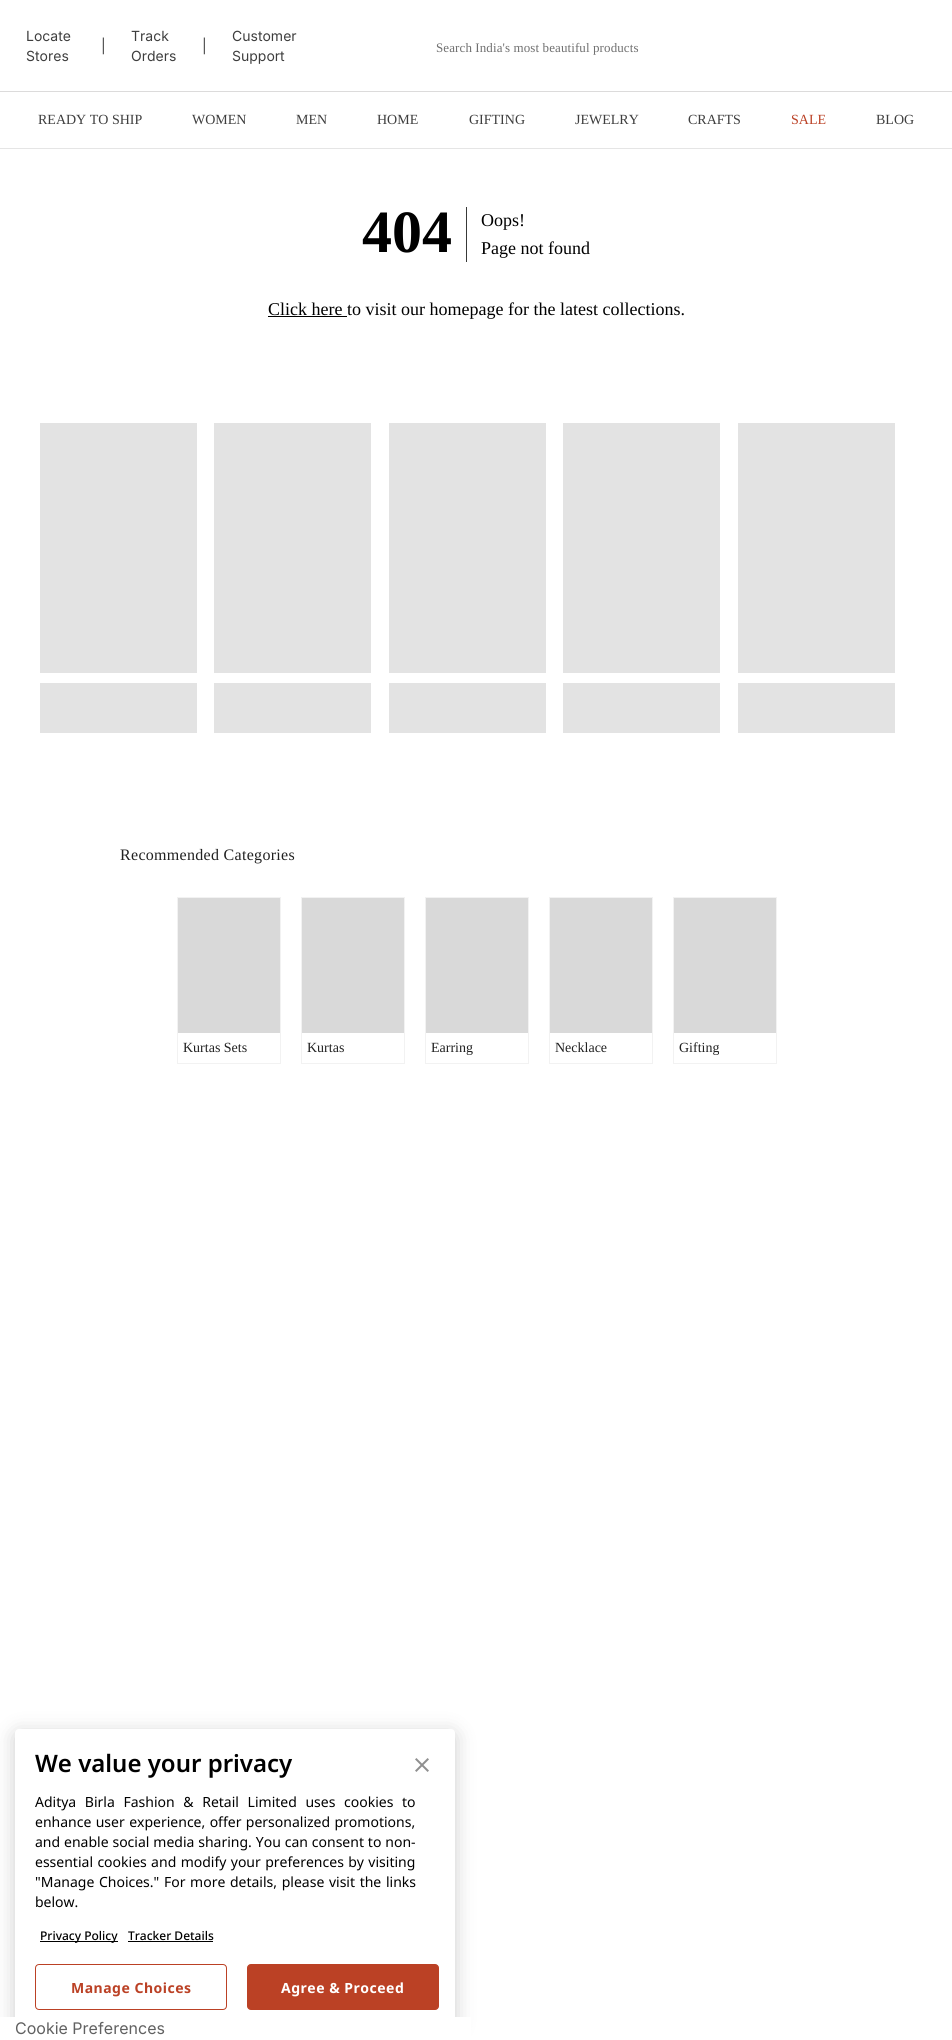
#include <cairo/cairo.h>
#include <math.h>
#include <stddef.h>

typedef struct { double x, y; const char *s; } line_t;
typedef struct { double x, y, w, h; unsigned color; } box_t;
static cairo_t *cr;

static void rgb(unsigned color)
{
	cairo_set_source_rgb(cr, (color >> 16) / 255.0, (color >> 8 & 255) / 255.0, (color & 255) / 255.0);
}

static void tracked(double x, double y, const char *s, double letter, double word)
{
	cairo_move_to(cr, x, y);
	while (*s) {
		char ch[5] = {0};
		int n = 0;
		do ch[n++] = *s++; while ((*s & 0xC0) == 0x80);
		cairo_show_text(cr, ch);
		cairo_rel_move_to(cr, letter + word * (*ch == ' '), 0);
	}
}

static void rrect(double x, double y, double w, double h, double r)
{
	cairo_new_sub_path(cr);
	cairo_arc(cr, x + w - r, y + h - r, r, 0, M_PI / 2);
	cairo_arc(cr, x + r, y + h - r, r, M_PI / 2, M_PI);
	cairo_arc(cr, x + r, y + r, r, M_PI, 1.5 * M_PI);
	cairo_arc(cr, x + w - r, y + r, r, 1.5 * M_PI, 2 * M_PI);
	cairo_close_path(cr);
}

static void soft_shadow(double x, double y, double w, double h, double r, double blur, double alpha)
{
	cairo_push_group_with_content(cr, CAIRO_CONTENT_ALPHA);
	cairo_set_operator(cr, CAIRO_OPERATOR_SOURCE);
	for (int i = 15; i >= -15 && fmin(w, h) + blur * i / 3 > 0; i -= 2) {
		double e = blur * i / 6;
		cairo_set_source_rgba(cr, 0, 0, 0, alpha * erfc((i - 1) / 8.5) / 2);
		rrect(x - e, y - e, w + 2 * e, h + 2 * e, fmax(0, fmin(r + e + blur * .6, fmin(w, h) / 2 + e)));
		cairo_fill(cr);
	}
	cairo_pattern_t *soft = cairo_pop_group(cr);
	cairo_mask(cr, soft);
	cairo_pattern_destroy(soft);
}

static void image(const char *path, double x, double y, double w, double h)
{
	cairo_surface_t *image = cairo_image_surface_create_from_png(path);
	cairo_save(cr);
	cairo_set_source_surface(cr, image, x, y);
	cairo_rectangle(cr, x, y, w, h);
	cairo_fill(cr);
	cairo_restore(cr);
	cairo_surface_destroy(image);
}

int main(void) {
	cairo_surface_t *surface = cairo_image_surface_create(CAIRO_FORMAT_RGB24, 952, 2040);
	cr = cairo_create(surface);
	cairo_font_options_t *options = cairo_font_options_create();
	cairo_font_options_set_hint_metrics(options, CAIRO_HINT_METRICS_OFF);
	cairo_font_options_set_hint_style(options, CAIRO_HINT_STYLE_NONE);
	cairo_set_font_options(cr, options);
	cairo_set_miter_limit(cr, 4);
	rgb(0xffffff);
	cairo_paint(cr);
	{
		static const box_t items[] = {
			{0, 148, 952, 1, 0xe5e5e5},
			{0, 91, 952, 1, 0xdcdbdb},
			{466, 207, 1, 55, 0x383938},
			{268, 316, 79, 1, 0x000000},
			{40, 423, 157, 250, 0xe3e3e3},
			{40, 683, 157, 50, 0xe3e3e3},
			{214, 423, 157, 250, 0xe3e3e3},
			{214, 683, 157, 50, 0xe3e3e3},
			{389, 423, 157, 250, 0xe3e3e3},
			{389, 683, 157, 50, 0xe3e3e3},
			{563, 423, 157, 250, 0xe3e3e3},
			{563, 683, 157, 50, 0xe3e3e3},
			{738, 423, 157, 250, 0xe3e3e3},
			{738, 683, 157, 50, 0xe3e3e3},
		};
		for (size_t i = 0; i < sizeof items / sizeof *items; i++) {
			rgb(items[i].color);
			cairo_rectangle(cr, items[i].x, items[i].y, items[i].w, items[i].h);
			cairo_fill(cr);
		}
	}
	cairo_rectangle(cr, 177.5, 897.5, 103, 166);
	rgb(0xf2f2f2);
	cairo_set_line_width(cr, 1);
	cairo_stroke(cr);
	rgb(0xd9d9d9);
	cairo_rectangle(cr, 178, 898, 102, 135);
	cairo_fill(cr);
	cairo_rectangle(cr, 301.5, 897.5, 103, 166);
	rgb(0xf2f2f2);
	cairo_stroke(cr);
	rgb(0xd9d9d9);
	cairo_rectangle(cr, 302, 898, 102, 135);
	cairo_fill(cr);
	cairo_rectangle(cr, 425.5, 897.5, 103, 166);
	rgb(0xf2f2f2);
	cairo_stroke(cr);
	rgb(0xd9d9d9);
	cairo_rectangle(cr, 426, 898, 102, 135);
	cairo_fill(cr);
	cairo_rectangle(cr, 549.5, 897.5, 103, 166);
	rgb(0xf2f2f2);
	cairo_stroke(cr);
	rgb(0xd9d9d9);
	cairo_rectangle(cr, 550, 898, 102, 135);
	cairo_fill(cr);
	cairo_rectangle(cr, 673.5, 897.5, 103, 166);
	rgb(0xf2f2f2);
	cairo_stroke(cr);
	rgb(0xd9d9d9);
	cairo_rectangle(cr, 674, 898, 102, 135);
	cairo_fill(cr);
	rgb(0x000000);
	soft_shadow(15, 1733, 440, 296, 4, 10, 0.2);
	rgb(0xffffff);
	rrect(15, 1729, 440, 296, 4);
	cairo_fill(cr);
	image("img/1.png", 415, 1758, 14, 14);
	rrect(35.5, 1964.5, 191, 45, 3.5);
	rgb(0xbb4125);
	cairo_stroke(cr);
	rrect(247.5, 1964.5, 191, 45, 3.5);
	cairo_fill_preserve(cr);
	cairo_stroke(cr);
	{
		static const box_t items[] = {
			{40, 1941, 78, 1, 0x000000},
			{128, 1941, 85, 1, 0x000000},
			{0, 2017, 471, 23, 0xffffff},
		};
		for (size_t i = 0; i < sizeof items / sizeof *items; i++) {
			rgb(items[i].color);
			cairo_rectangle(cr, items[i].x, items[i].y, items[i].w, items[i].h);
			cairo_fill(cr);
		}
	}
	cairo_select_font_face(cr, "Inter", CAIRO_FONT_SLANT_NORMAL, CAIRO_FONT_WEIGHT_NORMAL);
	cairo_set_font_size(cr, 14);
	rgb(0x3e3e3e);
	{
		static const line_t items[] = {
			{26, 41, "Locate"},
			{26, 61, "Stores"},
			{101, 51, "|"},
			{131, 41, "Track"},
			{131, 61, "Orders"},
			{202, 51, "|"},
			{232, 41, "Customer"},
			{232, 61, "Support"},
		};
		for (size_t i = 0; i < sizeof items / sizeof *items; i++) {
			cairo_move_to(cr, items[i].x, items[i].y);
			cairo_show_text(cr, items[i].s);
		}
	}
	cairo_select_font_face(cr, "Liberation Serif", CAIRO_FONT_SLANT_NORMAL, CAIRO_FONT_WEIGHT_NORMAL);
	cairo_set_font_size(cr, 13);
	rgb(0x707070);
	tracked(436, 52, "Search India's most beautiful products", 0.1, 0);
	cairo_set_font_size(cr, 14);
	rgb(0x3e3e3e);
	{
		static const line_t items[] = {
			{38, 124, "READY TO SHIP"},
			{192, 124, "WOMEN"},
			{296, 124, "MEN"},
			{377, 124, "HOME"},
			{469, 124, "GIFTING"},
			{575, 124, "JEWELRY"},
			{688, 124, "CRAFTS"},
		};
		for (size_t i = 0; i < sizeof items / sizeof *items; i++) {
			cairo_move_to(cr, items[i].x, items[i].y);
			cairo_show_text(cr, items[i].s);
		}
	}
	rgb(0xbb4125);
	cairo_move_to(cr, 791, 124);
	cairo_show_text(cr, "SALE");
	rgb(0x3e3e3e);
	cairo_move_to(cr, 876, 124);
	cairo_show_text(cr, "BLOG");
	cairo_select_font_face(cr, "Liberation Serif", CAIRO_FONT_SLANT_NORMAL, CAIRO_FONT_WEIGHT_BOLD);
	cairo_set_font_size(cr, 60);
	rgb(0x000000);
	cairo_move_to(cr, 362, 252);
	cairo_show_text(cr, "404");
	cairo_select_font_face(cr, "Liberation Serif", CAIRO_FONT_SLANT_NORMAL, CAIRO_FONT_WEIGHT_NORMAL);
	cairo_set_font_size(cr, 18);
	{
		static const line_t items[] = {
			{481, 226, "Oops!"},
			{481, 254, "Page not found"},
			{268, 315, "Click here to visit our homepage for the latest collections."},
		};
		for (size_t i = 0; i < sizeof items / sizeof *items; i++) {
			cairo_move_to(cr, items[i].x, items[i].y);
			cairo_show_text(cr, items[i].s);
		}
	}
	cairo_set_font_size(cr, 16);
	rgb(0x212121);
	tracked(120, 860, "Recommended Categories", 0.3, 0);
	cairo_set_font_size(cr, 14);
	{
		static const line_t items[] = {
			{183, 1052, "Kurtas Sets"},
			{307, 1052, "Kurtas"},
			{431, 1052, "Earring"},
			{555, 1052, "Necklace"},
			{679, 1052, "Gifting"},
		};
		for (size_t i = 0; i < sizeof items / sizeof *items; i++) {
			cairo_move_to(cr, items[i].x, items[i].y);
			cairo_show_text(cr, items[i].s);
		}
	}
	cairo_select_font_face(cr, "Noto Sans SemiBold", CAIRO_FONT_SLANT_NORMAL, CAIRO_FONT_WEIGHT_NORMAL);
	cairo_set_font_size(cr, 24);
	rgb(0x000000);
	cairo_move_to(cr, 35, 1772);
	cairo_show_text(cr, "We value your privacy");
	cairo_select_font_face(cr, "Noto Sans", CAIRO_FONT_SLANT_NORMAL, CAIRO_FONT_WEIGHT_NORMAL);
	cairo_set_font_size(cr, 14);
	tracked(35, 1807, "Aditya Birla Fashion & Retail Limited uses cookies to", 0, 5);
	tracked(35, 1827, "enhance user experience, offer personalized promotions,", 0, 0.75);
	tracked(35, 1847, "and enable social media sharing. You can consent to non-", 0, 0.25);
	tracked(35, 1867, "essential cookies and modify your preferences by visiting", 0, 0.75);
	tracked(35, 1887, "\"Manage Choices.\" For more details, please visit the links", 0, 1);
	cairo_move_to(cr, 35, 1907);
	cairo_show_text(cr, "below.");
	cairo_select_font_face(cr, "Noto Sans", CAIRO_FONT_SLANT_NORMAL, CAIRO_FONT_WEIGHT_BOLD);
	rgb(0xbb4125);
	tracked(71, 1993, "Manage Choices", 0.5, 0);
	rgb(0xffffff);
	tracked(281, 1993, "Agree & Proceed", 0.5, 0);
	cairo_select_font_face(cr, "Noto Sans Medium", CAIRO_FONT_SLANT_NORMAL, CAIRO_FONT_WEIGHT_NORMAL);
	cairo_set_font_size(cr, 12);
	rgb(0x000000);
	cairo_move_to(cr, 40, 1940);
	cairo_show_text(cr, "Privacy Policy");
	cairo_move_to(cr, 128, 1940);
	cairo_show_text(cr, "Tracker Details");
	cairo_select_font_face(cr, "Inter", CAIRO_FONT_SLANT_NORMAL, CAIRO_FONT_WEIGHT_NORMAL);
	cairo_set_font_size(cr, 16);
	rgb(0x616161);
	cairo_move_to(cr, 15, 2034);
	cairo_show_text(cr, "Cookie Preferences");
	cairo_surface_write_to_png(surface, "page.png");
	cairo_font_options_destroy(options);
	cairo_destroy(cr);
	cairo_surface_destroy(surface);
	return 0;
}
